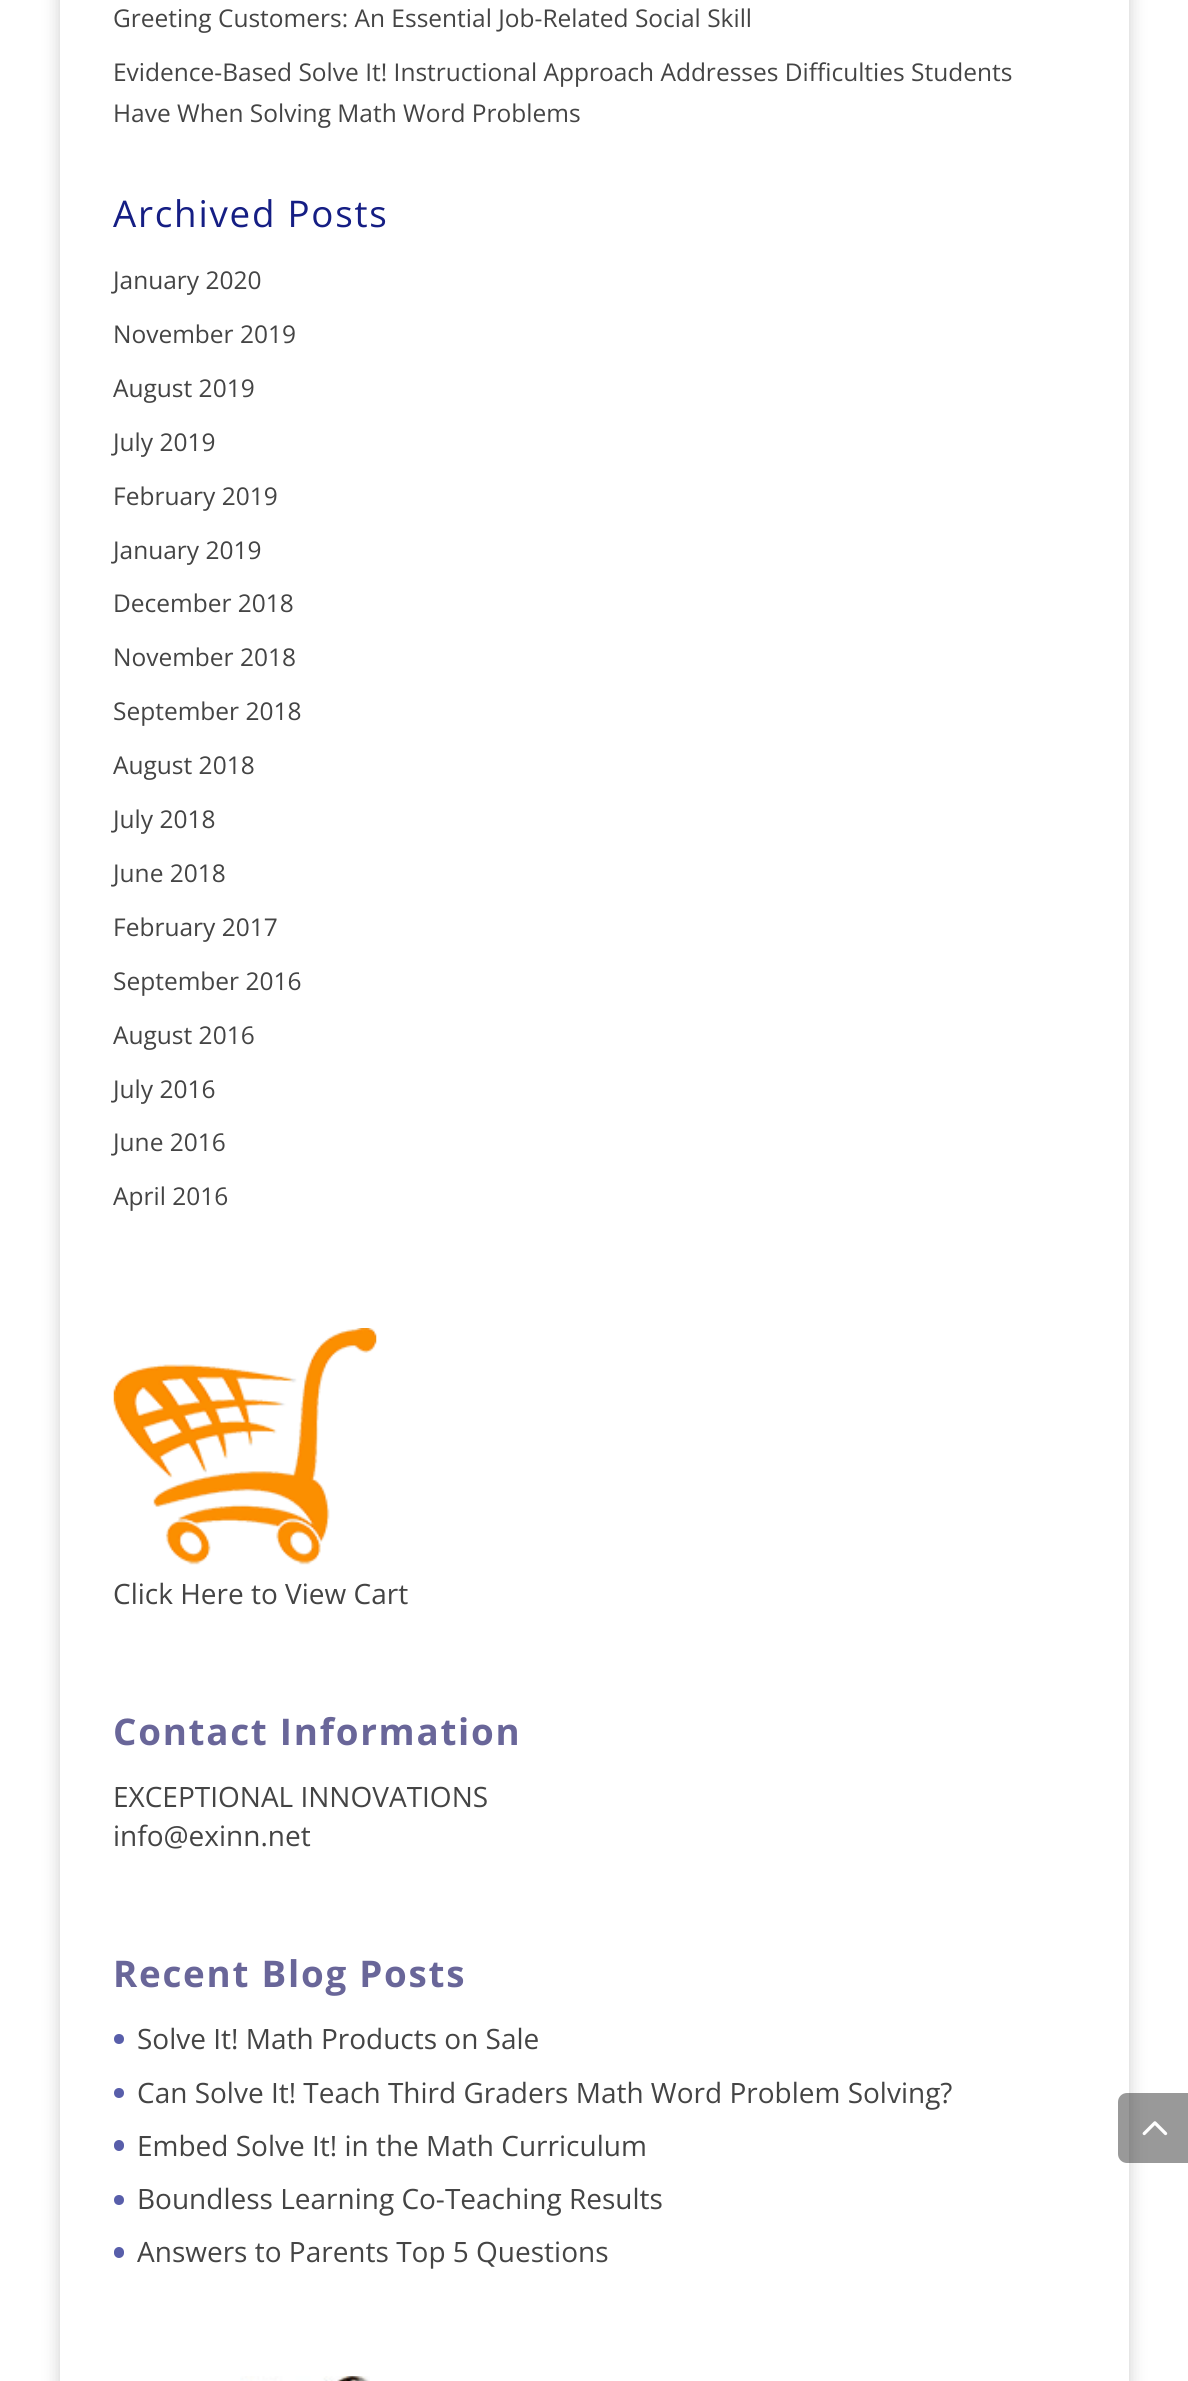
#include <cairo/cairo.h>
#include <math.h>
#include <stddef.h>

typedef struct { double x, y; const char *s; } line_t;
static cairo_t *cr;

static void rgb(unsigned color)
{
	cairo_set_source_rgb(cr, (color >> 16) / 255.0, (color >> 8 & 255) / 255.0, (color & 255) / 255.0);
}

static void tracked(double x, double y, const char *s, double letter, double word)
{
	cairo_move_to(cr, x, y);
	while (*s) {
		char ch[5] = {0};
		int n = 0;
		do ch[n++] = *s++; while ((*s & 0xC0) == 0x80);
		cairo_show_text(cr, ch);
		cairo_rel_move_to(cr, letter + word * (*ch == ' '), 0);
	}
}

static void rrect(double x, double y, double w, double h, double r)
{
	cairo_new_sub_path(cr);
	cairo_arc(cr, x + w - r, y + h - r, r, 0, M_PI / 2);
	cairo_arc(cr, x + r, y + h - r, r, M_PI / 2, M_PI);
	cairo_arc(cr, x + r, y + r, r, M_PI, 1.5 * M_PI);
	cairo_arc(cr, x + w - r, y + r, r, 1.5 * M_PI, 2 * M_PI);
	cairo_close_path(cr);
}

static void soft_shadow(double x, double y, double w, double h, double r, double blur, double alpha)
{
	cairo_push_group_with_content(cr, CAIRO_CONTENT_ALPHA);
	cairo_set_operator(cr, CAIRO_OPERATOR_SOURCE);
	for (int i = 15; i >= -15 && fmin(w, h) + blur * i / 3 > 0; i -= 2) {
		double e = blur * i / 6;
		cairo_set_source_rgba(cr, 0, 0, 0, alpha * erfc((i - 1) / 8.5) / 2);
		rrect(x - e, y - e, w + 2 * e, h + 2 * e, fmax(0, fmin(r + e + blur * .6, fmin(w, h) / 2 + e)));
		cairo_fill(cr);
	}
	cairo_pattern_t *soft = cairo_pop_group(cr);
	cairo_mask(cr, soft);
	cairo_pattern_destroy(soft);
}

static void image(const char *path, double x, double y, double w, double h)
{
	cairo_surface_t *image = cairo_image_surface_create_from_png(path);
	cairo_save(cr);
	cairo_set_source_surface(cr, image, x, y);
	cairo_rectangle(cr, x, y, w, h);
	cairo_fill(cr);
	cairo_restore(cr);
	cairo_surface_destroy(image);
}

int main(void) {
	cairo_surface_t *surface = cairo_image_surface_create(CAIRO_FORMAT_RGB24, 1188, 2381);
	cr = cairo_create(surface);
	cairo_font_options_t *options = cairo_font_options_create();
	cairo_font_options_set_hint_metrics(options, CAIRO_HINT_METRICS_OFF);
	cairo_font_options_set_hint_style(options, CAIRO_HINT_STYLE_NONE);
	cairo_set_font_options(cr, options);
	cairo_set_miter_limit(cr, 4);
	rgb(0xffffff);
	cairo_paint(cr);
	rgb(0x000000);
	soft_shadow(60, -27, 1069, 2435, 0, 9, 0.2);
	rgb(0xffffff);
	cairo_rectangle(cr, 60, 0, 1069, 2381);
	cairo_fill(cr);
	image("img/1.png", 113, 1328, 264, 237);
	rgb(0x585eaa);
	cairo_arc(cr, 119, 2039, 5, 0, 2 * M_PI);
	cairo_fill(cr);
	cairo_arc(cr, 119, 2093, 5, 0, 2 * M_PI);
	cairo_fill(cr);
	rrect(114, 2140, 10, 11, 5);
	cairo_fill(cr);
	cairo_arc(cr, 119, 2200, 5, 0, 2 * M_PI);
	cairo_fill(cr);
	rrect(114, 2247, 10, 11, 5);
	cairo_fill(cr);
	image("img/2.png", 240, 2376, 130, 5);
	cairo_set_source_rgba(cr, 0, 0, 0, 0.4);
	cairo_new_path(cr);
	cairo_move_to(cr, 1127, 2093);
	cairo_line_to(cr, 1188, 2093);
	cairo_line_to(cr, 1188, 2163);
	cairo_line_to(cr, 1127, 2163);
	cairo_curve_to(cr, 1122, 2163, 1118, 2159, 1118, 2154);
	cairo_line_to(cr, 1118, 2102);
	cairo_curve_to(cr, 1118, 2097, 1122, 2093, 1127, 2093);
	cairo_close_path(cr);
	cairo_fill(cr);
	image("img/3.png", 1142, 2121, 26, 15);
	cairo_select_font_face(cr, "Open Sans", CAIRO_FONT_SLANT_NORMAL, CAIRO_FONT_WEIGHT_NORMAL);
	cairo_set_font_size(cr, 24.5);
	rgb(0x444444);
	{
		static const line_t items[] = {
			{113, 27, "Greeting Customers: An Essential Job-Related Social Skill"},
			{113, 81, "Evidence-Based Solve It! Instructional Approach Addresses Difficulties Students"},
			{113, 122, "Have When Solving Math Word Problems"},
		};
		for (size_t i = 0; i < sizeof items / sizeof *items; i++) {
			cairo_move_to(cr, items[i].x, items[i].y);
			cairo_show_text(cr, items[i].s);
		}
	}
	cairo_set_font_size(cr, 36.75);
	rgb(0x151e84);
	tracked(113, 227, "Archived Posts", 1.75, 0);
	cairo_set_font_size(cr, 24.5);
	rgb(0x444444);
	{
		static const line_t items[] = {
			{113, 289, "January 2020"},
			{113, 343, "November 2019"},
			{113, 397, "August 2019"},
			{113, 451, "July 2019"},
			{113, 505, "February 2019"},
			{113, 559, "January 2019"},
			{113, 612, "December 2018"},
			{113, 666, "November 2018"},
			{113, 720, "September 2018"},
			{113, 774, "August 2018"},
			{113, 828, "July 2018"},
			{113, 882, "June 2018"},
			{113, 936, "February 2017"},
			{113, 990, "September 2016"},
			{113, 1044, "August 2016"},
			{113, 1098, "July 2016"},
			{113, 1151, "June 2016"},
			{113, 1205, "April 2016"},
		};
		for (size_t i = 0; i < sizeof items / sizeof *items; i++) {
			cairo_move_to(cr, items[i].x, items[i].y);
			cairo_show_text(cr, items[i].s);
		}
	}
	cairo_set_font_size(cr, 28);
	cairo_move_to(cr, 113, 1604);
	cairo_show_text(cr, "Click Here to View Cart");
	cairo_select_font_face(cr, "Open Sans", CAIRO_FONT_SLANT_NORMAL, CAIRO_FONT_WEIGHT_BOLD);
	cairo_set_font_size(cr, 36.75);
	rgb(0x696699);
	tracked(113, 1745, "Contact Information", 1.75, 0);
	cairo_select_font_face(cr, "Open Sans", CAIRO_FONT_SLANT_NORMAL, CAIRO_FONT_WEIGHT_NORMAL);
	cairo_set_font_size(cr, 28);
	rgb(0x444444);
	cairo_move_to(cr, 113, 1807);
	cairo_show_text(cr, "EXCEPTIONAL INNOVATIONS");
	cairo_move_to(cr, 113, 1846);
	cairo_show_text(cr, "info@exinn.net");
	cairo_select_font_face(cr, "Open Sans", CAIRO_FONT_SLANT_NORMAL, CAIRO_FONT_WEIGHT_BOLD);
	cairo_set_font_size(cr, 36.75);
	rgb(0x696699);
	tracked(113, 1987, "Recent Blog Posts", 1.75, 0);
	cairo_select_font_face(cr, "Open Sans", CAIRO_FONT_SLANT_NORMAL, CAIRO_FONT_WEIGHT_NORMAL);
	cairo_set_font_size(cr, 28);
	rgb(0x444444);
	{
		static const line_t items[] = {
			{137, 2049, "Solve It! Math Products on Sale"},
			{137, 2103, "Can Solve It! Teach Third Graders Math Word Problem Solving?"},
			{137, 2156, "Embed Solve It! in the Math Curriculum"},
			{137, 2209, "Boundless Learning Co-Teaching Results"},
			{137, 2262, "Answers to Parents Top 5 Questions"},
		};
		for (size_t i = 0; i < sizeof items / sizeof *items; i++) {
			cairo_move_to(cr, items[i].x, items[i].y);
			cairo_show_text(cr, items[i].s);
		}
	}
	cairo_surface_write_to_png(surface, "page.png");
	cairo_font_options_destroy(options);
	cairo_destroy(cr);
	cairo_surface_destroy(surface);
	return 0;
}
